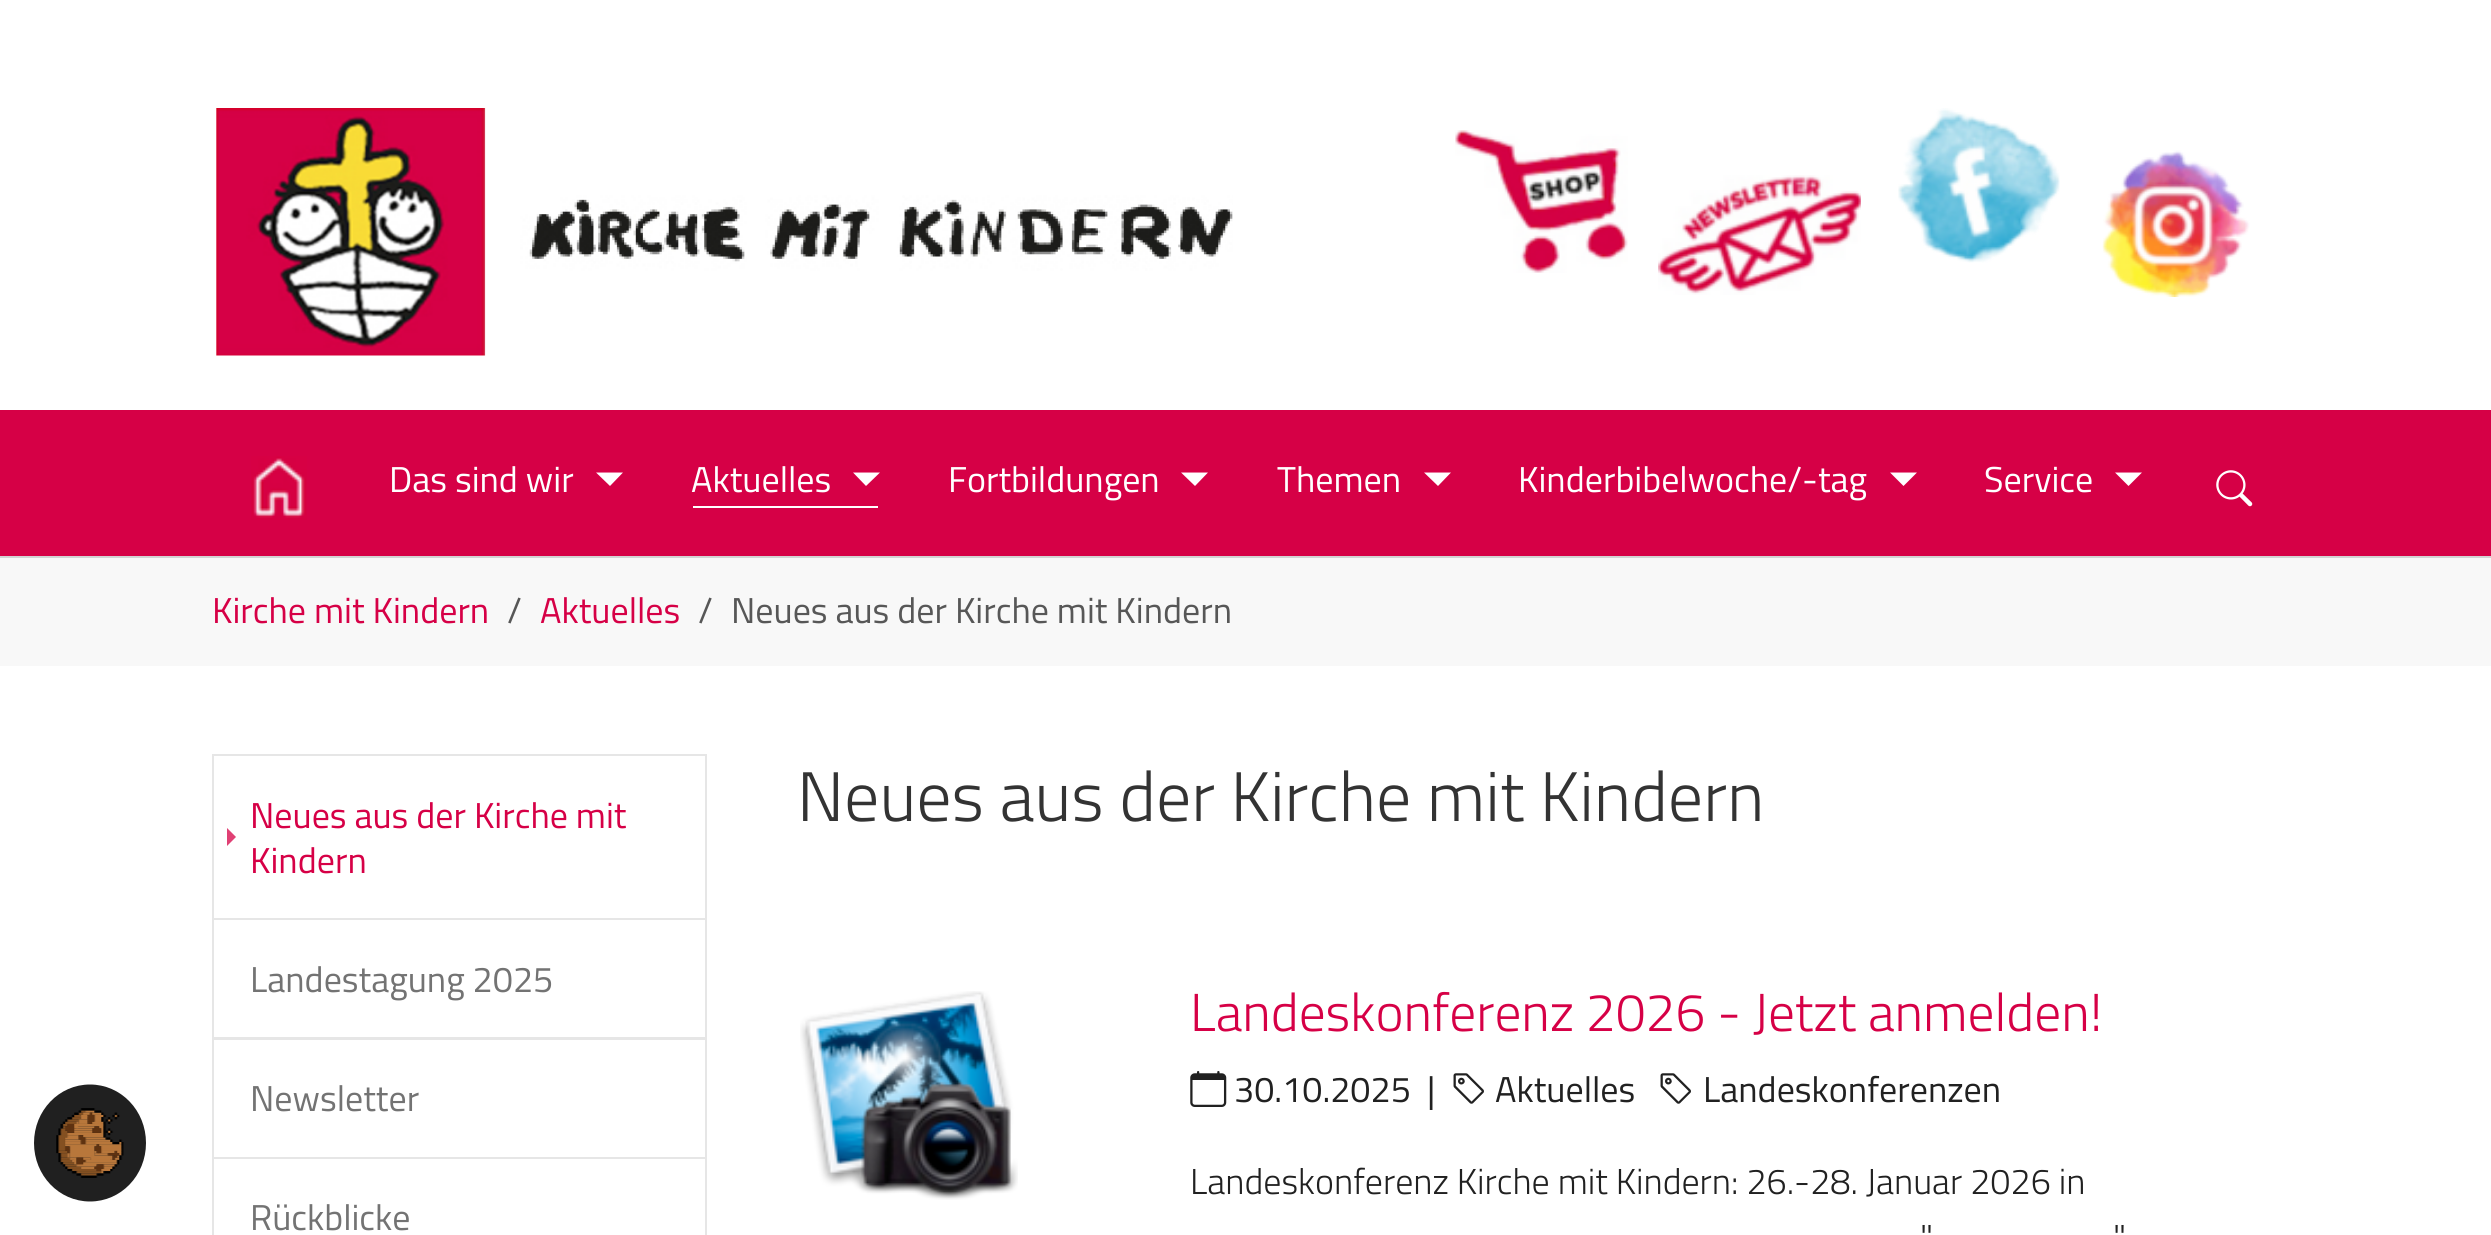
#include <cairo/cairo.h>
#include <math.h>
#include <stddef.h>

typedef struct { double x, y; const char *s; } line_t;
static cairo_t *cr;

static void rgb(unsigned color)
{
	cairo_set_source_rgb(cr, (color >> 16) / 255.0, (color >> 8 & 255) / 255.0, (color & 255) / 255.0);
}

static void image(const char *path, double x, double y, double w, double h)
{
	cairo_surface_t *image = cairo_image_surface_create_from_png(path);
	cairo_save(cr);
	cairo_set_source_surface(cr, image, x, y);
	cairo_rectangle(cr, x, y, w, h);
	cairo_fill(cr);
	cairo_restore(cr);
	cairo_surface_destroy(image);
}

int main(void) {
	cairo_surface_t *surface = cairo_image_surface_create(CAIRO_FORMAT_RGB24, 2491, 1235);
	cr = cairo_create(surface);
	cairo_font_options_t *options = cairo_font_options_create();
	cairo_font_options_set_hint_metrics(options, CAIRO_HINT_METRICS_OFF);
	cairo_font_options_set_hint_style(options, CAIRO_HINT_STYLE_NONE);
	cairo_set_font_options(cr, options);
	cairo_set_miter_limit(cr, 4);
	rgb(0xffffff);
	cairo_paint(cr);
	rgb(0x202020);
	cairo_new_path(cr);
	cairo_move_to(cr, 90, 1084.5);
	cairo_curve_to(cr, 121, 1084.5, 146, 1110.5, 146, 1143);
	cairo_curve_to(cr, 146, 1175.5, 121, 1201.5, 90, 1201.5);
	cairo_curve_to(cr, 59, 1201.5, 34, 1175.5, 34, 1143);
	cairo_curve_to(cr, 34, 1110.5, 59, 1084.5, 90, 1084.5);
	cairo_close_path(cr);
	cairo_fill(cr);
	image("img/1.png", 56, 1108, 68, 70);
	image("img/2.png", 216, 108, 1017, 248);
	image("img/3.png", 1455, 130, 173, 143);
	image("img/4.png", 1658, 175, 203, 120);
	image("img/5.png", 1898, 108, 162, 155);
	image("img/6.png", 2102, 150, 148, 147);
	rgb(0xd3d3d3);
	cairo_rectangle(cr, 0, 556, 2491, 2);
	cairo_fill(cr);
	rgb(0xd60046);
	cairo_rectangle(cr, 0, 410, 2491, 146);
	cairo_fill(cr);
	image("img/7.png", 251, 456, 56, 64);
	rgb(0xffffff);
	cairo_new_path(cr);
	cairo_move_to(cr, 596, 472.5);
	cairo_line_to(cr, 623, 472.5);
	cairo_line_to(cr, 610, 486);
	cairo_close_path(cr);
	cairo_fill(cr);
	cairo_rectangle(cr, 693, 506, 185, 2);
	cairo_fill(cr);
	cairo_new_path(cr);
	cairo_move_to(cr, 853, 472.5);
	cairo_line_to(cr, 880, 472.5);
	cairo_line_to(cr, 866, 486);
	cairo_close_path(cr);
	cairo_fill(cr);
	cairo_new_path(cr);
	cairo_move_to(cr, 1181, 472.5);
	cairo_line_to(cr, 1208, 472.5);
	cairo_line_to(cr, 1195, 486);
	cairo_close_path(cr);
	cairo_fill(cr);
	cairo_new_path(cr);
	cairo_move_to(cr, 1424, 472.5);
	cairo_line_to(cr, 1451, 472.5);
	cairo_line_to(cr, 1438, 486);
	cairo_close_path(cr);
	cairo_fill(cr);
	cairo_new_path(cr);
	cairo_move_to(cr, 1890, 472.5);
	cairo_line_to(cr, 1917, 472.5);
	cairo_line_to(cr, 1903.5, 486);
	cairo_close_path(cr);
	cairo_fill(cr);
	cairo_new_path(cr);
	cairo_move_to(cr, 2115, 472.5);
	cairo_line_to(cr, 2142, 472.5);
	cairo_line_to(cr, 2128.5, 486);
	cairo_close_path(cr);
	cairo_fill(cr);
	image("img/8.png", 2216, 470, 37, 37);
	rgb(0xf8f8f8);
	cairo_rectangle(cr, 0, 558, 2491, 108);
	cairo_fill(cr);
	cairo_rectangle(cr, 213, 755, 493, 164);
	rgb(0xe6e6e6);
	cairo_stroke(cr);
	rgb(0xe04074);
	cairo_new_path(cr);
	cairo_move_to(cr, 227, 846);
	cairo_line_to(cr, 227, 828);
	cairo_line_to(cr, 236, 837);
	cairo_close_path(cr);
	cairo_fill(cr);
	cairo_rectangle(cr, 213, 919, 493, 120);
	rgb(0xe6e6e6);
	cairo_stroke(cr);
	cairo_rectangle(cr, 213, 1038, 493, 120);
	cairo_stroke(cr);
	cairo_rectangle(cr, 213, 1158, 493, 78);
	cairo_stroke(cr);
	image("img/9.png", 800, 991, 218, 209);
	image("img/10.png", 1190, 1071, 37, 36);
	image("img/11.png", 1453, 1073, 31, 31);
	image("img/11.png", 1660, 1073, 31, 31);
	cairo_select_font_face(cr, "Titillium Web", CAIRO_FONT_SLANT_NORMAL, CAIRO_FONT_WEIGHT_NORMAL);
	cairo_set_font_size(cr, 36);
	rgb(0xffffff);
	{
		static const line_t items[] = {
			{389, 492, "Das sind wir"},
			{691, 492, "Aktuelles"},
			{948, 492, "Fortbildungen"},
			{1277, 492, "Themen"},
			{1518, 492, "Kinderbibelwoche/-tag"},
			{1984, 492, "Service"},
		};
		for (size_t i = 0; i < sizeof items / sizeof *items; i++) {
			cairo_move_to(cr, items[i].x, items[i].y);
			cairo_show_text(cr, items[i].s);
		}
	}
	rgb(0xd60046);
	cairo_move_to(cr, 212, 623);
	cairo_show_text(cr, "Kirche mit Kindern");
	rgb(0x575757);
	cairo_move_to(cr, 507, 623);
	cairo_show_text(cr, "/");
	rgb(0xd60046);
	cairo_move_to(cr, 540, 623);
	cairo_show_text(cr, "Aktuelles");
	rgb(0x575757);
	cairo_move_to(cr, 698, 623);
	cairo_show_text(cr, "/");
	cairo_move_to(cr, 731, 623);
	cairo_show_text(cr, "Neues aus der Kirche mit Kindern");
	rgb(0xd60046);
	cairo_move_to(cr, 250, 828);
	cairo_show_text(cr, "Neues aus der Kirche mit");
	cairo_move_to(cr, 250, 873);
	cairo_show_text(cr, "Kindern");
	rgb(0x737373);
	{
		static const line_t items[] = {
			{250, 992, "Landestagung 2025"},
			{250, 1111, "Newsletter"},
			{250, 1230, "Rückblicke"},
		};
		for (size_t i = 0; i < sizeof items / sizeof *items; i++) {
			cairo_move_to(cr, items[i].x, items[i].y);
			cairo_show_text(cr, items[i].s);
		}
	}
	cairo_select_font_face(cr, "Titillium Web Light", CAIRO_FONT_SLANT_NORMAL, CAIRO_FONT_WEIGHT_NORMAL);
	cairo_set_font_size(cr, 70.1);
	rgb(0x333333);
	cairo_move_to(cr, 797, 821);
	cairo_show_text(cr, "Neues aus der Kirche mit Kindern");
	cairo_set_font_size(cr, 53.4);
	rgb(0xd60046);
	cairo_move_to(cr, 1190, 1031);
	cairo_show_text(cr, "Landeskonferenz 2026 - Jetzt anmelden!");
	cairo_select_font_face(cr, "Titillium Web", CAIRO_FONT_SLANT_NORMAL, CAIRO_FONT_WEIGHT_NORMAL);
	cairo_set_font_size(cr, 36);
	rgb(0x212121);
	{
		static const line_t items[] = {
			{1234, 1102, "30.10.2025"},
			{1427, 1102, "|"},
			{1495, 1102, "Aktuelles"},
			{1703, 1102, "Landeskonferenzen"},
		};
		for (size_t i = 0; i < sizeof items / sizeof *items; i++) {
			cairo_move_to(cr, items[i].x, items[i].y);
			cairo_show_text(cr, items[i].s);
		}
	}
	cairo_select_font_face(cr, "Titillium Web Light", CAIRO_FONT_SLANT_NORMAL, CAIRO_FONT_WEIGHT_NORMAL);
	{
		static const line_t items[] = {
			{1190, 1194, "Landeskonferenz Kirche mit Kindern: 26.-28. Januar 2026 in"},
			{1920, 1250, "\""},
			{2113, 1250, "\""},
		};
		for (size_t i = 0; i < sizeof items / sizeof *items; i++) {
			cairo_move_to(cr, items[i].x, items[i].y);
			cairo_show_text(cr, items[i].s);
		}
	}
	cairo_surface_write_to_png(surface, "page.png");
	cairo_font_options_destroy(options);
	cairo_destroy(cr);
	cairo_surface_destroy(surface);
	return 0;
}
